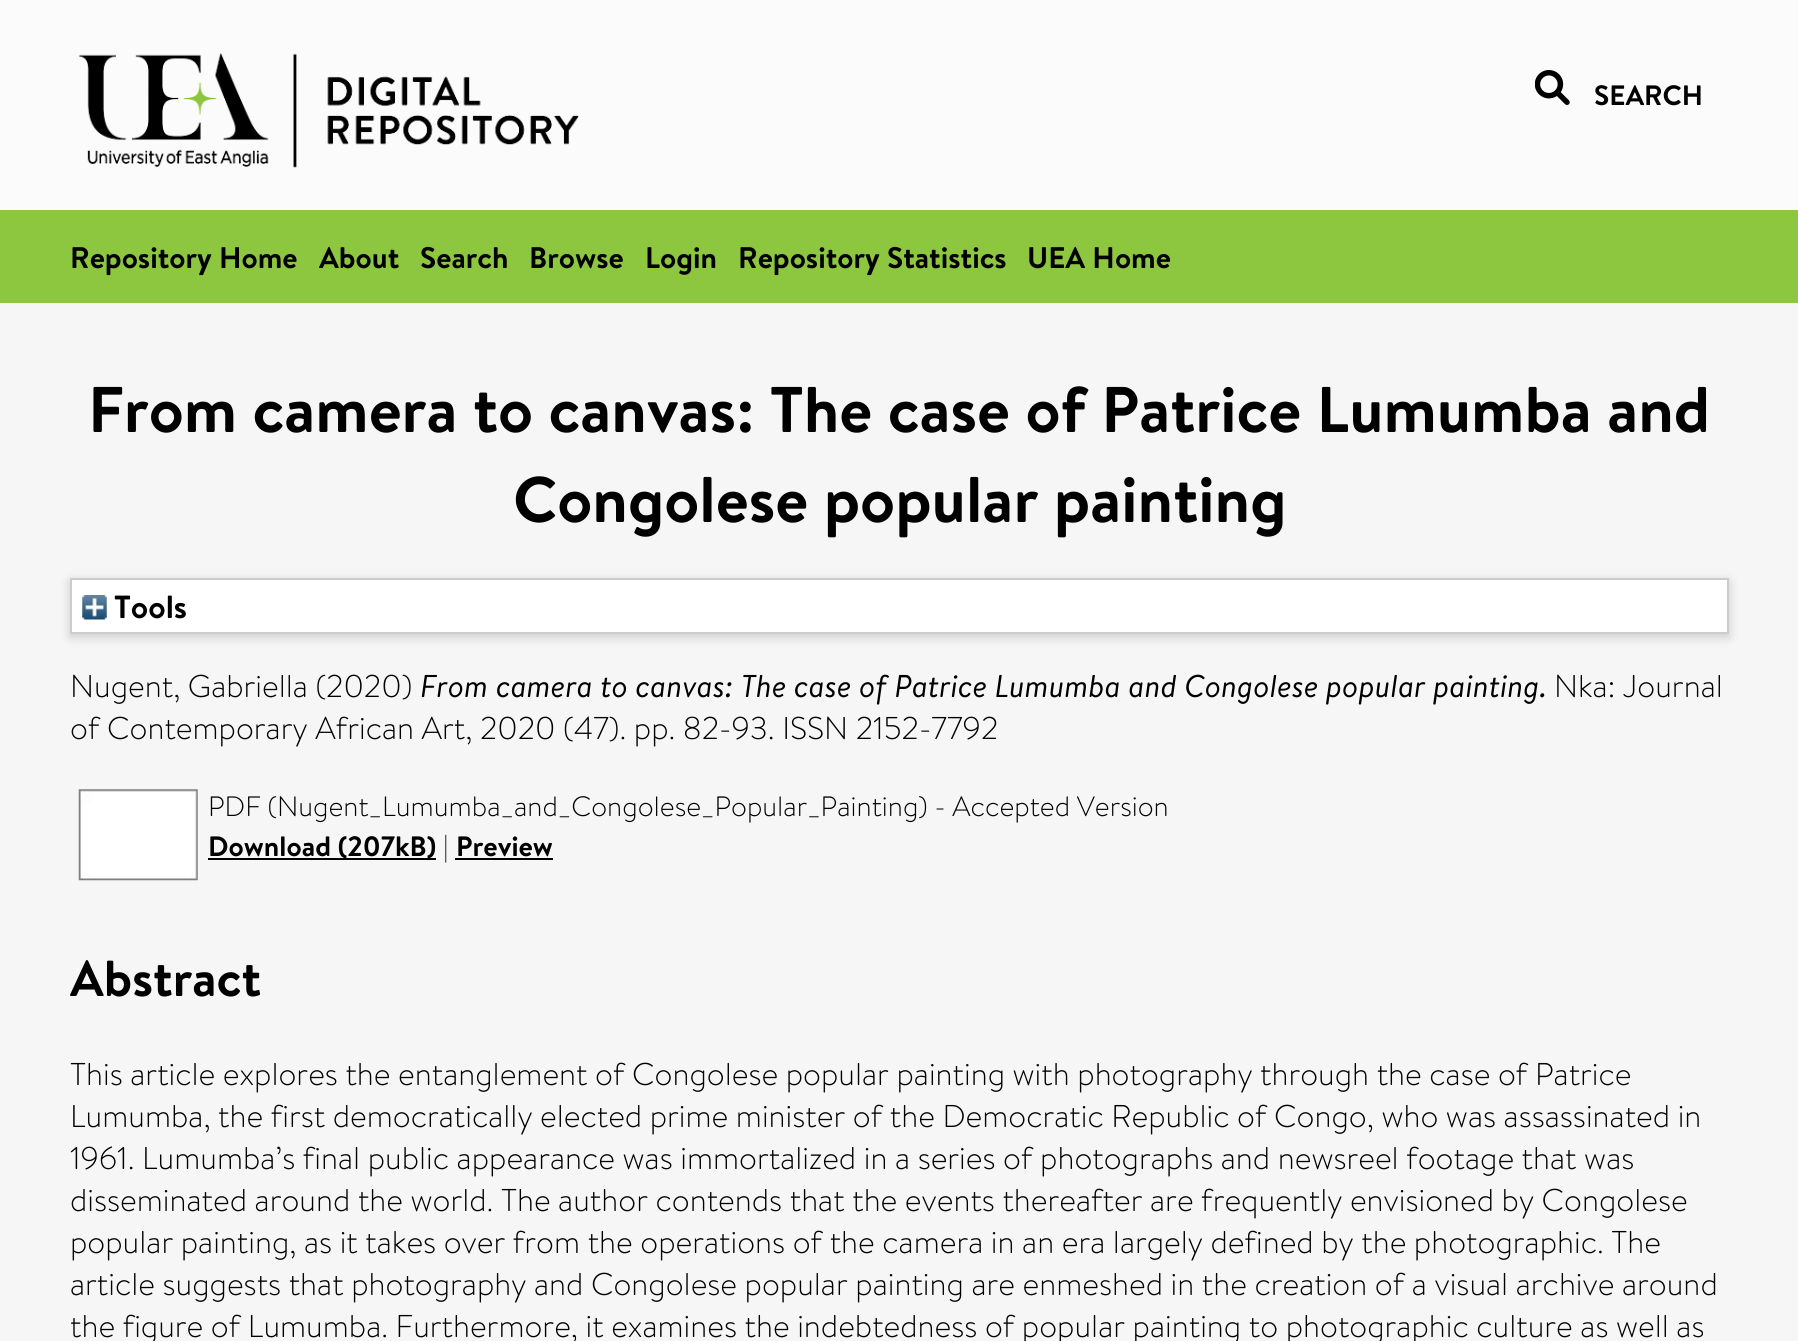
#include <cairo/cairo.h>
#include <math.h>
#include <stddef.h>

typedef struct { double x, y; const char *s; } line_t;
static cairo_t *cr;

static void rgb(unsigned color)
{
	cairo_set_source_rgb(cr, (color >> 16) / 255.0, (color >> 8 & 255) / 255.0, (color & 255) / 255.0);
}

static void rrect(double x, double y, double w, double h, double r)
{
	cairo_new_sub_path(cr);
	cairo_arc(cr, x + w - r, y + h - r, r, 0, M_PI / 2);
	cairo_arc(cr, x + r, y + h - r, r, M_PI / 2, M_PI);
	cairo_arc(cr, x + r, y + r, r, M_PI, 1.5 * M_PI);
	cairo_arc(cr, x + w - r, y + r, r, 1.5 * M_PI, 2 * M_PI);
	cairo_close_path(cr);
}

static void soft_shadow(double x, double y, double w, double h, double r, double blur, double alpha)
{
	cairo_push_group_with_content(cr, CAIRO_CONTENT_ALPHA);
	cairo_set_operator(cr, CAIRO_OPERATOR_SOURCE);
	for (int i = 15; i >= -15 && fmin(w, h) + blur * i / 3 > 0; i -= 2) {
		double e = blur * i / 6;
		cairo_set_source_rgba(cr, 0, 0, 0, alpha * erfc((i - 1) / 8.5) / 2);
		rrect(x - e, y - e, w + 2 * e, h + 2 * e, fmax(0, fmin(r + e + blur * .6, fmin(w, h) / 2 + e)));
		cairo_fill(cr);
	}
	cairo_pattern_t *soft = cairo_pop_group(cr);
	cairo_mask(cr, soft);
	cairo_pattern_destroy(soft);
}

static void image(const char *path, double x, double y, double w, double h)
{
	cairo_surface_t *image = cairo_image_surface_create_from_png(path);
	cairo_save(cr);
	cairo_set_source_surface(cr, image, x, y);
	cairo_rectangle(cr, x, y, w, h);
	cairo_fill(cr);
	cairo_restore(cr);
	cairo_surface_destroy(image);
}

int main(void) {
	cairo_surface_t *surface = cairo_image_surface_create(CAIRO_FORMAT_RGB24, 1798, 1341);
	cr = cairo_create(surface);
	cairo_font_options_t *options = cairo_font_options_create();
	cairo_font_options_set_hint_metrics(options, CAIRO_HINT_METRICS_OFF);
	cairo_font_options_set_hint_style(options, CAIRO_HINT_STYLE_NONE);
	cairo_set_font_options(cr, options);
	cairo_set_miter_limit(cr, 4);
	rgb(0xf6f6f6);
	cairo_paint(cr);
	rgb(0xfbfbfb);
	cairo_rectangle(cr, 0, 0, 1798, 210);
	cairo_fill(cr);
	image("img/1.png", 79, 53, 500, 115);
	image("img/2.png", 1535, 70, 35, 35);
	rgb(0x8dc63f);
	cairo_rectangle(cr, 0, 210, 1798, 93);
	cairo_fill(cr);
	rgb(0x646464);
	soft_shadow(70, 581, 1659, 56, 0, 5, 0.3);
	rgb(0xffffff);
	cairo_rectangle(cr, 71, 579, 1657, 54);
	cairo_fill_preserve(cr);
	rgb(0xcccccc);
	cairo_stroke(cr);
	image("img/3.png", 82, 595, 25, 25);
	image("img/4.png", 78, 789, 120, 92);
	rgb(0x000000);
	cairo_rectangle(cr, 208, 858, 228, 2);
	cairo_fill(cr);
	cairo_rectangle(cr, 455, 858, 98, 2);
	cairo_fill(cr);
	cairo_select_font_face(cr, "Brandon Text", CAIRO_FONT_SLANT_NORMAL, CAIRO_FONT_WEIGHT_BOLD);
	cairo_set_font_size(cr, 28);
	cairo_move_to(cr, 1594, 105);
	cairo_show_text(cr, "SEARCH");
	cairo_set_font_size(cr, 29.75);
	{
		static const line_t items[] = {
			{70, 268, "Repository Home"},
			{319, 268, "About"},
			{420, 268, "Search"},
			{529, 268, "Browse"},
			{645, 268, "Login"},
			{738, 268, "Repository Statistics"},
			{1027, 268, "UEA Home"},
		};
		for (size_t i = 0; i < sizeof items / sizeof *items; i++) {
			cairo_move_to(cr, items[i].x, items[i].y);
			cairo_show_text(cr, items[i].s);
		}
	}
	cairo_set_font_size(cr, 64.4);
	cairo_move_to(cr, 88, 432);
	cairo_show_text(cr, "From camera to canvas: The case of Patrice Lumumba and");
	cairo_move_to(cr, 513, 522);
	cairo_show_text(cr, "Congolese popular painting");
	cairo_set_font_size(cr, 32);
	cairo_move_to(cr, 114, 618);
	cairo_show_text(cr, "Tools");
	cairo_select_font_face(cr, "Brandon Text Light", CAIRO_FONT_SLANT_NORMAL, CAIRO_FONT_WEIGHT_NORMAL);
	cairo_set_font_size(cr, 31.5);
	cairo_move_to(cr, 70, 697);
	cairo_show_text(cr, "Nugent, Gabriella (2020)");
	cairo_select_font_face(cr, "Brandon Text", CAIRO_FONT_SLANT_ITALIC, CAIRO_FONT_WEIGHT_NORMAL);
	cairo_move_to(cr, 420, 697);
	cairo_show_text(cr, "From camera to canvas: The case of Patrice Lumumba and Congolese popular painting.");
	cairo_select_font_face(cr, "Brandon Text Light", CAIRO_FONT_SLANT_NORMAL, CAIRO_FONT_WEIGHT_NORMAL);
	cairo_move_to(cr, 1554, 697);
	cairo_show_text(cr, "Nka: Journal");
	cairo_move_to(cr, 70, 739);
	cairo_show_text(cr, "of Contemporary African Art, 2020 (47). pp. 82-93. ISSN 2152-7792");
	cairo_set_font_size(cr, 28);
	cairo_move_to(cr, 208, 816);
	cairo_show_text(cr, "PDF (Nugent_Lumumba_and_Congolese_Popular_Painting) - Accepted Version");
	cairo_select_font_face(cr, "Brandon Text", CAIRO_FONT_SLANT_NORMAL, CAIRO_FONT_WEIGHT_BOLD);
	cairo_move_to(cr, 208, 856);
	cairo_show_text(cr, "Download (207kB)");
	cairo_select_font_face(cr, "Brandon Text Light", CAIRO_FONT_SLANT_NORMAL, CAIRO_FONT_WEIGHT_NORMAL);
	cairo_move_to(cr, 443, 856);
	cairo_show_text(cr, "|");
	cairo_select_font_face(cr, "Brandon Text", CAIRO_FONT_SLANT_NORMAL, CAIRO_FONT_WEIGHT_BOLD);
	cairo_move_to(cr, 456, 856);
	cairo_show_text(cr, "Preview");
	cairo_set_font_size(cr, 50.5);
	cairo_move_to(cr, 70, 996);
	cairo_show_text(cr, "Abstract");
	cairo_select_font_face(cr, "Brandon Text Light", CAIRO_FONT_SLANT_NORMAL, CAIRO_FONT_WEIGHT_NORMAL);
	cairo_set_font_size(cr, 31.5);
	{
		static const line_t items[] = {
			{70, 1085, "This article explores the entanglement of Congolese popular painting with photography through the case of Patrice"},
			{70, 1127, "Lumumba, the first democratically elected prime minister of the Democratic Republic of Congo, who was assassinated in"},
			{70, 1169, "1961. Lumumba’s final public appearance was immortalized in a series of photographs and newsreel footage that was"},
			{70, 1211, "disseminated around the world. The author contends that the events thereafter are frequently envisioned by Congolese"},
			{70, 1253, "popular painting, as it takes over from the operations of the camera in an era largely defined by the photographic. The"},
			{70, 1295, "article suggests that photography and Congolese popular painting are enmeshed in the creation of a visual archive around"},
			{70, 1337, "the figure of Lumumba. Furthermore, it examines the indebtedness of popular painting to photographic culture as well as"},
		};
		for (size_t i = 0; i < sizeof items / sizeof *items; i++) {
			cairo_move_to(cr, items[i].x, items[i].y);
			cairo_show_text(cr, items[i].s);
		}
	}
	cairo_surface_write_to_png(surface, "page.png");
	cairo_font_options_destroy(options);
	cairo_destroy(cr);
	cairo_surface_destroy(surface);
	return 0;
}
